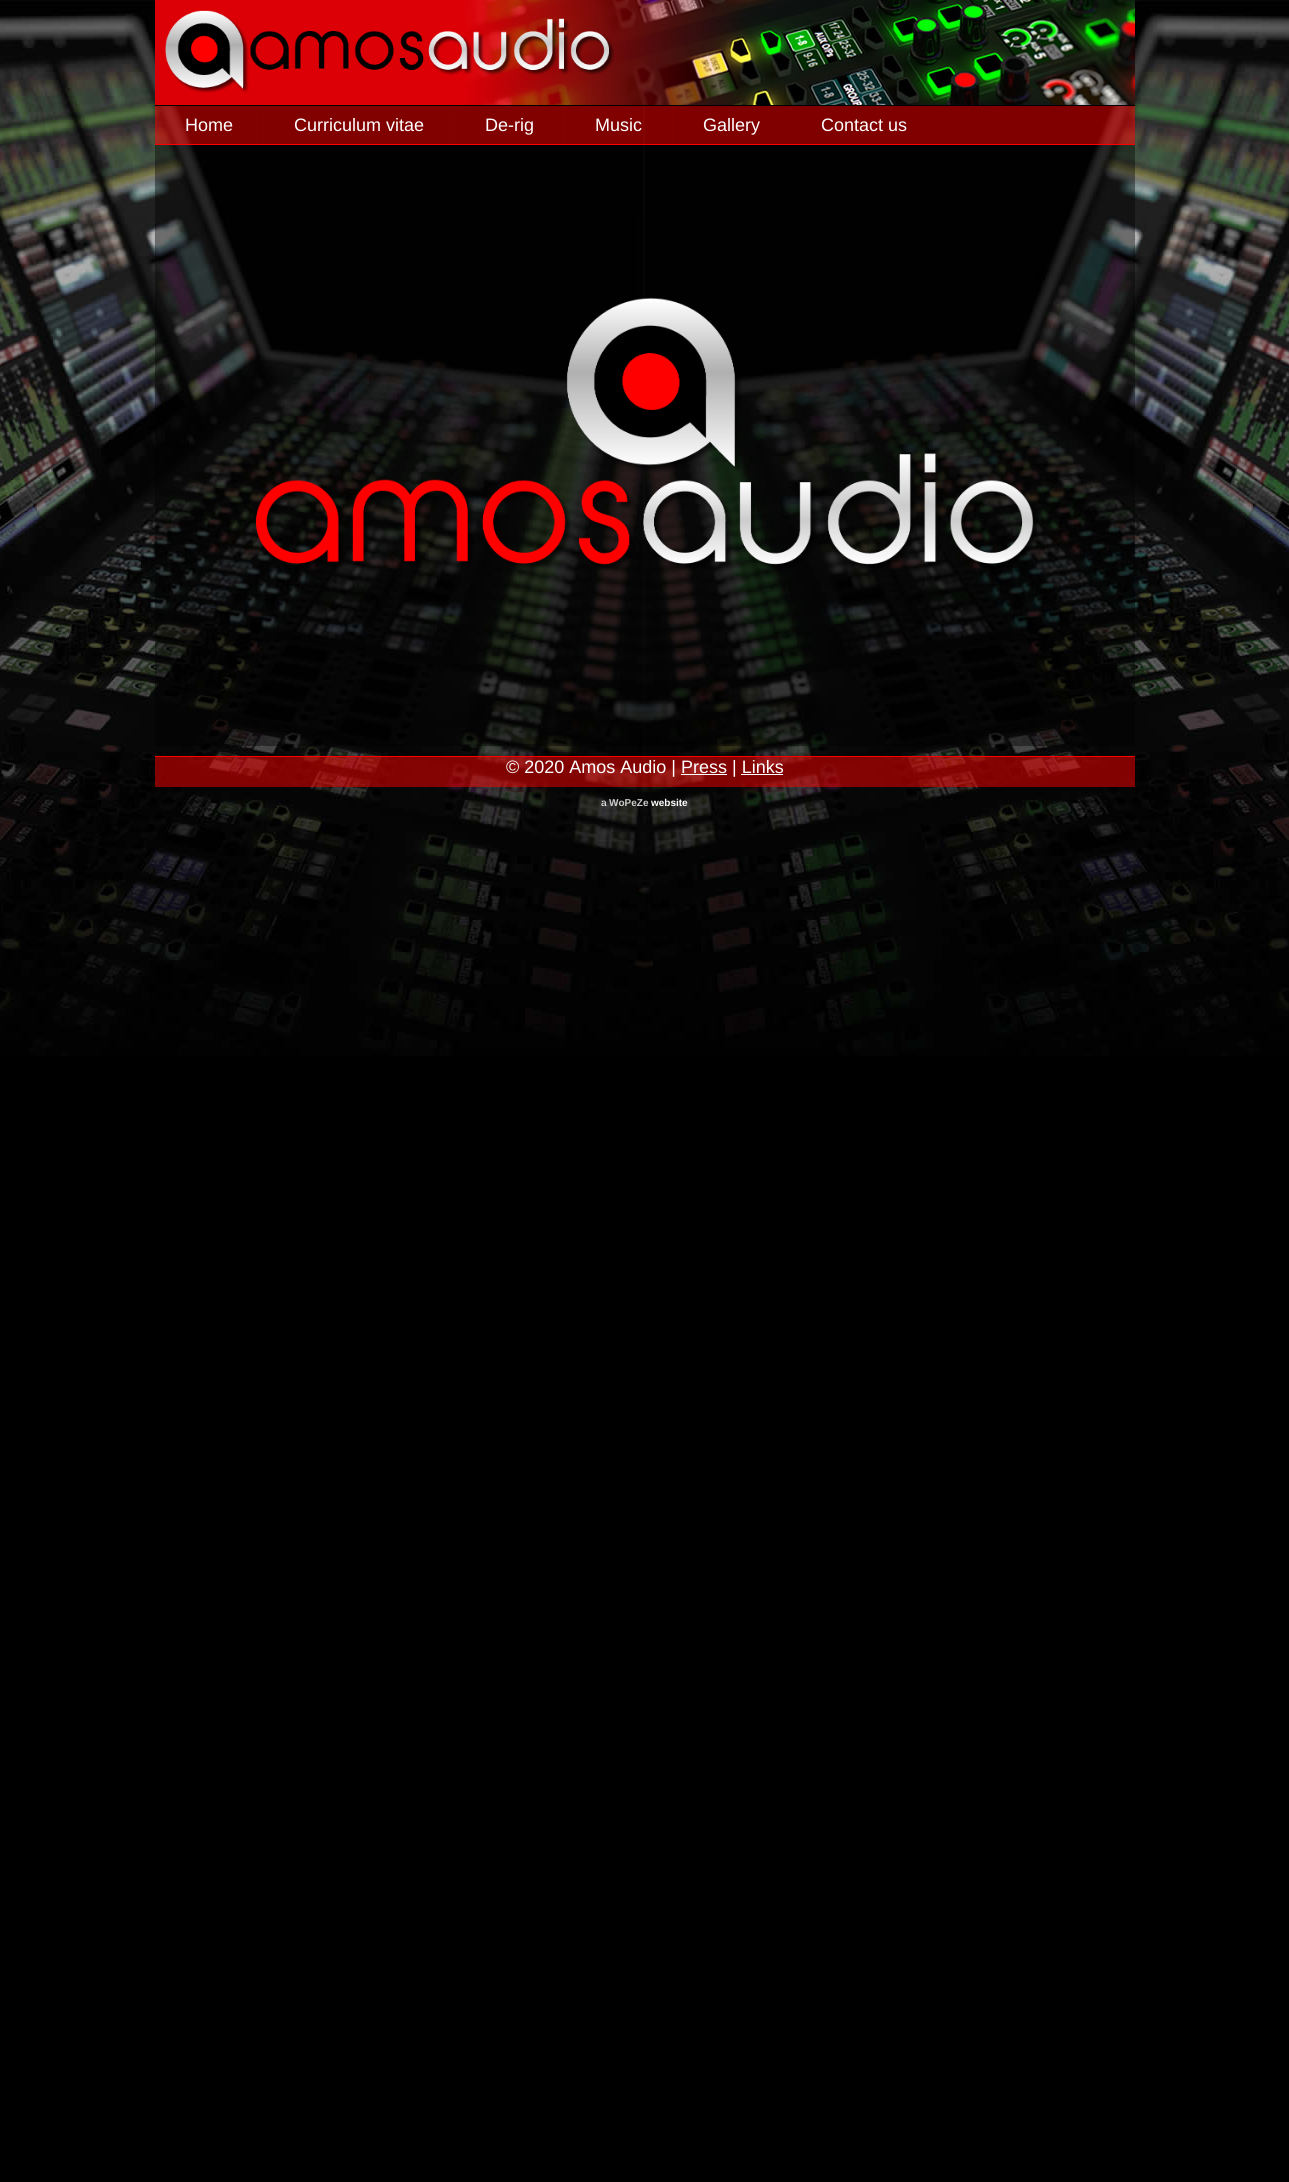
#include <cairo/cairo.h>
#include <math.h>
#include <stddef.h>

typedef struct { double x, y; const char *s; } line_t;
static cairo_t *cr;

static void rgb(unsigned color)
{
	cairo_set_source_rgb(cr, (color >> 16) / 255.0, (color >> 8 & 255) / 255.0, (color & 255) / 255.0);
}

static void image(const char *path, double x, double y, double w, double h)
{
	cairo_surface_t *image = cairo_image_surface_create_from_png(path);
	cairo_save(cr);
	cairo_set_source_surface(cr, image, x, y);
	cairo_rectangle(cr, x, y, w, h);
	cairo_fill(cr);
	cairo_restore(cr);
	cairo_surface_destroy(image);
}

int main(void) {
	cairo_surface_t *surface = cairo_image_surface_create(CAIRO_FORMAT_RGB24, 1289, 2182);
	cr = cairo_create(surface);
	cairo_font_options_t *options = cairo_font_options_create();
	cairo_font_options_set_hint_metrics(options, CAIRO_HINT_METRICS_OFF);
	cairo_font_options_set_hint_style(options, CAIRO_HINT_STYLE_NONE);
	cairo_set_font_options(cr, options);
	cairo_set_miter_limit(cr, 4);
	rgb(0x000000);
	cairo_paint(cr);
	image("img/1.png", 0, 0, 1289, 1056);
	image("img/2.png", 155, 0, 980, 105);
	image("img/3.png", 165, 10, 449, 83);
	cairo_set_source_rgba(cr, 1, 0, 0, 0.5);
	cairo_rectangle(cr, 155, 106, 980, 38);
	cairo_fill(cr);
	rgb(0x000000);
	cairo_rectangle(cr, 155, 105, 980, 1);
	cairo_fill(cr);
	rgb(0xff0000);
	cairo_rectangle(cr, 155, 144, 980, 1);
	cairo_fill(cr);
	cairo_new_path(cr);
	cairo_move_to(cr, 263.5, 106);
	cairo_line_to(cr, 263.5, 144);
	rgb(0x8b0000);
	cairo_set_line_width(cr, 1);
	cairo_set_dash(cr, (double[]){1, 1}, 2, 0);
	cairo_stroke(cr);
	cairo_new_path(cr);
	cairo_move_to(cr, 454.5, 106);
	cairo_line_to(cr, 454.5, 144);
	cairo_stroke(cr);
	cairo_new_path(cr);
	cairo_move_to(cr, 564.5, 106);
	cairo_line_to(cr, 564.5, 144);
	cairo_stroke(cr);
	cairo_new_path(cr);
	cairo_move_to(cr, 672.5, 106);
	cairo_line_to(cr, 672.5, 144);
	cairo_stroke(cr);
	cairo_new_path(cr);
	cairo_move_to(cr, 790.5, 106);
	cairo_line_to(cr, 790.5, 144);
	cairo_stroke(cr);
	cairo_new_path(cr);
	cairo_move_to(cr, 937.5, 106);
	cairo_line_to(cr, 937.5, 144);
	cairo_stroke(cr);
	cairo_set_source_rgba(cr, 0, 0, 0, 0.4);
	cairo_rectangle(cr, 155, 145, 980, 601);
	cairo_fill(cr);
	image("img/4.png", 256, 297, 783, 273);
	cairo_set_source_rgba(cr, 1, 0, 0, 0.5);
	cairo_rectangle(cr, 155, 757, 980, 30);
	cairo_fill(cr);
	rgb(0xff0000);
	cairo_rectangle(cr, 155, 756, 980, 1);
	cairo_fill(cr);
	rgb(0xffffff);
	cairo_rectangle(cr, 681, 774, 46, 1);
	cairo_fill(cr);
	cairo_rectangle(cr, 741, 774, 42, 1);
	cairo_fill(cr);
	cairo_select_font_face(cr, "Liberation Sans", CAIRO_FONT_SLANT_NORMAL, CAIRO_FONT_WEIGHT_NORMAL);
	cairo_set_font_size(cr, 18);
	{
		static const line_t items[] = {
			{185, 131, "Home"},
			{294, 131, "Curriculum vitae"},
			{485, 131, "De-rig"},
			{595, 131, "Music"},
			{703, 131, "Gallery"},
			{821, 131, "Contact us"},
			{506, 773, "© 2020 Amos Audio | Press | Links"},
		};
		for (size_t i = 0; i < sizeof items / sizeof *items; i++) {
			cairo_move_to(cr, items[i].x, items[i].y);
			cairo_show_text(cr, items[i].s);
		}
	}
	cairo_set_font_size(cr, 10);
	cairo_move_to(cr, 601, 806);
	cairo_show_text(cr, "a");
	cairo_select_font_face(cr, "Liberation Sans", CAIRO_FONT_SLANT_NORMAL, CAIRO_FONT_WEIGHT_BOLD);
	rgb(0xcccccc);
	cairo_move_to(cr, 609, 806);
	cairo_show_text(cr, "WoPeZe");
	rgb(0xffffff);
	cairo_move_to(cr, 651, 806);
	cairo_show_text(cr, "website");
	cairo_surface_write_to_png(surface, "page.png");
	cairo_font_options_destroy(options);
	cairo_destroy(cr);
	cairo_surface_destroy(surface);
	return 0;
}
